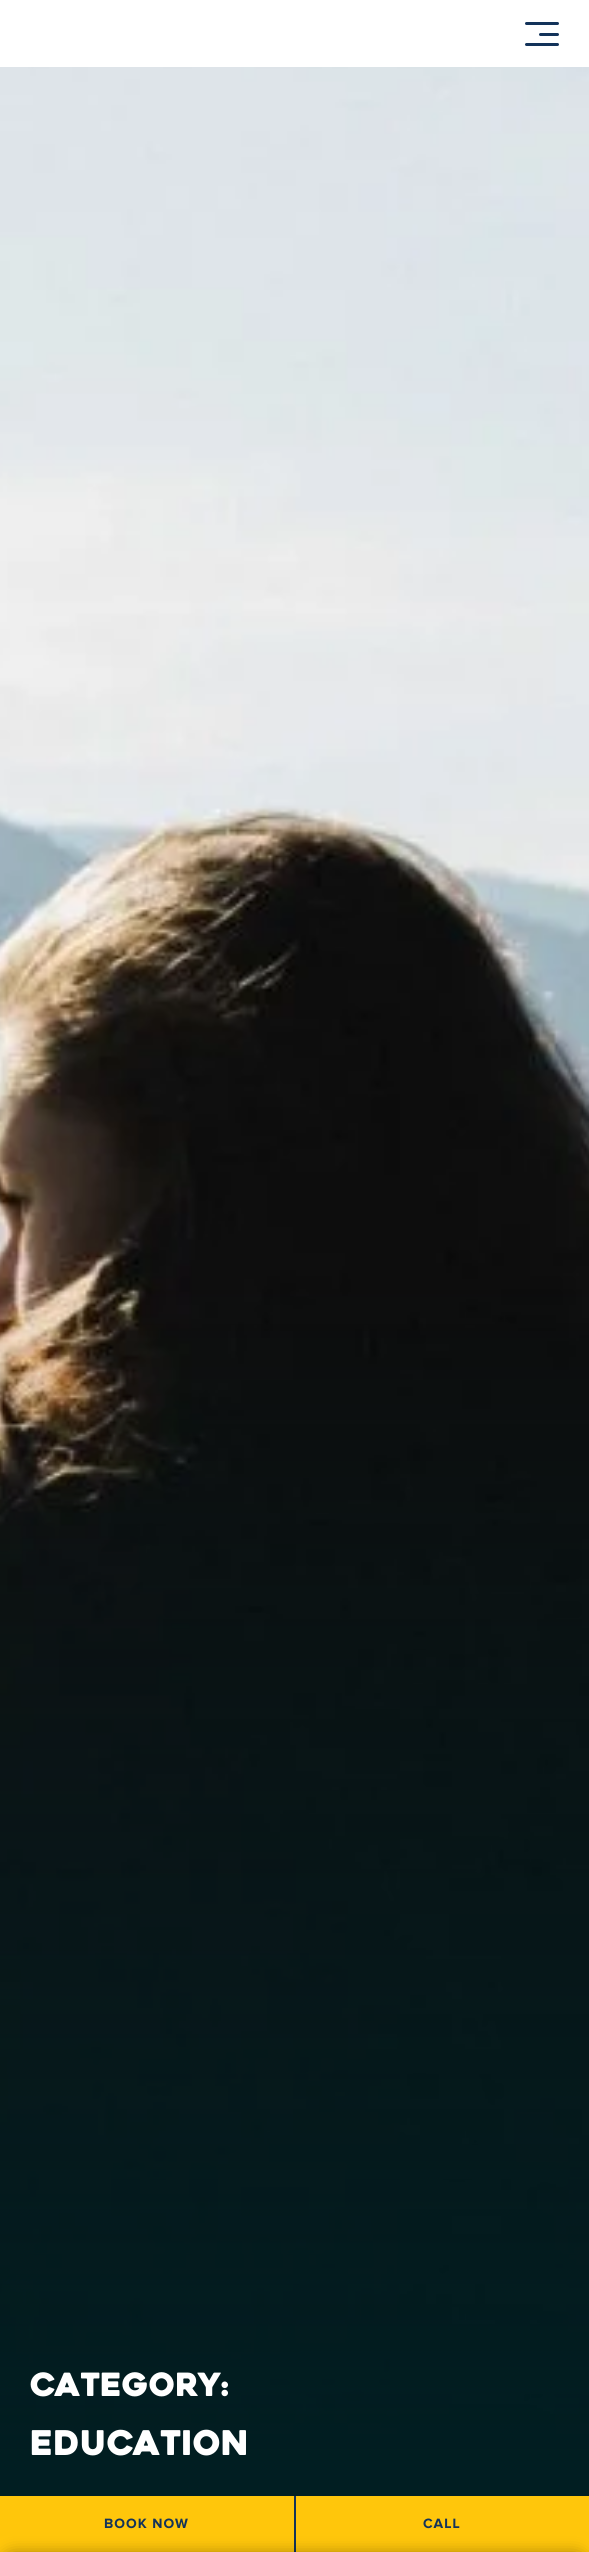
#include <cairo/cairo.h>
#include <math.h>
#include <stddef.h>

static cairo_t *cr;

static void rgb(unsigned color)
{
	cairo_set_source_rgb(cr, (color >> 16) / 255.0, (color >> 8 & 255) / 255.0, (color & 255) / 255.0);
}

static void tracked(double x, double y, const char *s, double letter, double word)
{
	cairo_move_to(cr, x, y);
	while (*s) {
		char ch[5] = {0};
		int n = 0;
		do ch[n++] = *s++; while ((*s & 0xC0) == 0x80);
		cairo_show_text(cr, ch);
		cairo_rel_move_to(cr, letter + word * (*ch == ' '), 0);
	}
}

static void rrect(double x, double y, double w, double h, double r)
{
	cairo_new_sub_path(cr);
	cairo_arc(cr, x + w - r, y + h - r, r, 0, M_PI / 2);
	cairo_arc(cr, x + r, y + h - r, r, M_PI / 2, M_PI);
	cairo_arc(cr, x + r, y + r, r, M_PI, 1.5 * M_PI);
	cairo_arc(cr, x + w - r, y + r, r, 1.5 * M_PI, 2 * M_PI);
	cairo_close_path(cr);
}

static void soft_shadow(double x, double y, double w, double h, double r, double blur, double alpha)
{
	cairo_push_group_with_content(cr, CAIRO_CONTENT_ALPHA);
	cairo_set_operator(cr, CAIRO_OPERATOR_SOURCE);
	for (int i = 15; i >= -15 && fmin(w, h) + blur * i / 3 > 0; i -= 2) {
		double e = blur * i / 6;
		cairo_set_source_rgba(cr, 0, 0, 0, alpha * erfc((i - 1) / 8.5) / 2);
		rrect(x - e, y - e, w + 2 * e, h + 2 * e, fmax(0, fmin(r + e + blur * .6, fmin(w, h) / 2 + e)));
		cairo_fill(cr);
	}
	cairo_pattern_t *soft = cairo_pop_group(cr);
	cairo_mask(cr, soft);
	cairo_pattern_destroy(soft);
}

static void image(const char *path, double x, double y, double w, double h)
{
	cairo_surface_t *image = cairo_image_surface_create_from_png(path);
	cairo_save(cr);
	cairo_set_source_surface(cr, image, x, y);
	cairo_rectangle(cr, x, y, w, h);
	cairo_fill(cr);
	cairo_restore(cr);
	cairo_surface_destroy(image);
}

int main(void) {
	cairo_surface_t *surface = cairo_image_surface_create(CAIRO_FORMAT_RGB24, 589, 2552);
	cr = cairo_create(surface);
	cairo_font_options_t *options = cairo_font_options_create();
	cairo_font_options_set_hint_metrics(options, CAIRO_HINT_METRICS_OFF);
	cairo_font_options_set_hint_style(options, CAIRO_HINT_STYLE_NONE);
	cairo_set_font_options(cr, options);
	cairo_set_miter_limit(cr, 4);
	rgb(0xffffff);
	cairo_paint(cr);
	rgb(0x13335a);
	rrect(525, 22, 34, 3, 1.5);
	cairo_fill(cr);
	rrect(539, 33, 20, 3, 1.5);
	cairo_fill(cr);
	rrect(525, 43, 34, 3, 1.5);
	cairo_fill(cr);
	image("img/1.png", 0, 67, 589, 2429);
	rgb(0xffc60b);
	cairo_rectangle(cr, 0, 2496, 589, 56);
	cairo_fill(cr);
	rgb(0x13335a);
	cairo_rectangle(cr, 294, 2496, 2, 56);
	cairo_fill(cr);
	rgb(0x000000);
	soft_shadow(0, 2552, 589, 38, 15, 7.5, 0.3);
	cairo_select_font_face(cr, "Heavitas", CAIRO_FONT_SLANT_NORMAL, CAIRO_FONT_WEIGHT_NORMAL);
	cairo_set_font_size(cr, 32);
	rgb(0xffffff);
	cairo_move_to(cr, 30, 2396);
	cairo_show_text(cr, "CATEGORY:");
	cairo_set_font_size(cr, 34);
	cairo_move_to(cr, 30, 2455);
	cairo_show_text(cr, "EDUCATION");
	cairo_select_font_face(cr, "Proxima Nova", CAIRO_FONT_SLANT_NORMAL, CAIRO_FONT_WEIGHT_BOLD);
	cairo_set_font_size(cr, 14);
	rgb(0x13335a);
	tracked(104, 2528, "BOOK NOW", 1, 0);
	tracked(423, 2528, "CALL", 1, 0);
	cairo_surface_write_to_png(surface, "page.png");
	cairo_font_options_destroy(options);
	cairo_destroy(cr);
	cairo_surface_destroy(surface);
	return 0;
}
